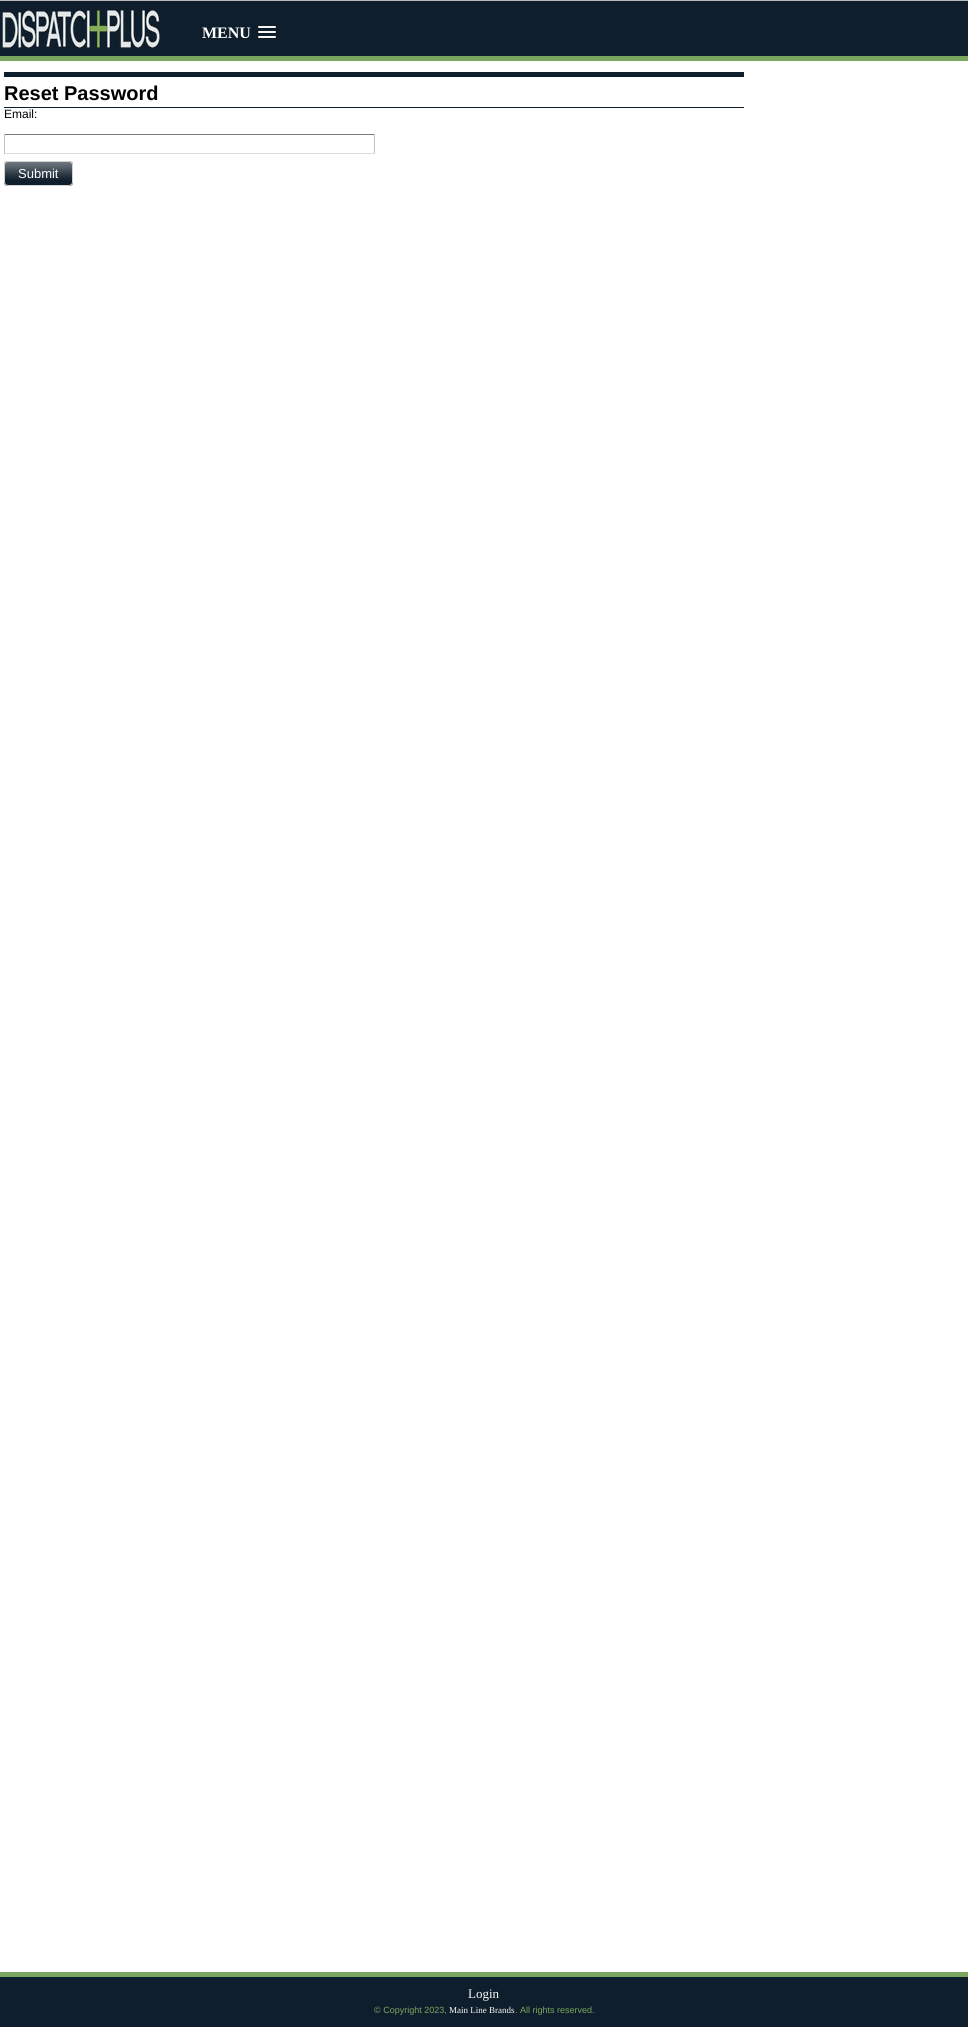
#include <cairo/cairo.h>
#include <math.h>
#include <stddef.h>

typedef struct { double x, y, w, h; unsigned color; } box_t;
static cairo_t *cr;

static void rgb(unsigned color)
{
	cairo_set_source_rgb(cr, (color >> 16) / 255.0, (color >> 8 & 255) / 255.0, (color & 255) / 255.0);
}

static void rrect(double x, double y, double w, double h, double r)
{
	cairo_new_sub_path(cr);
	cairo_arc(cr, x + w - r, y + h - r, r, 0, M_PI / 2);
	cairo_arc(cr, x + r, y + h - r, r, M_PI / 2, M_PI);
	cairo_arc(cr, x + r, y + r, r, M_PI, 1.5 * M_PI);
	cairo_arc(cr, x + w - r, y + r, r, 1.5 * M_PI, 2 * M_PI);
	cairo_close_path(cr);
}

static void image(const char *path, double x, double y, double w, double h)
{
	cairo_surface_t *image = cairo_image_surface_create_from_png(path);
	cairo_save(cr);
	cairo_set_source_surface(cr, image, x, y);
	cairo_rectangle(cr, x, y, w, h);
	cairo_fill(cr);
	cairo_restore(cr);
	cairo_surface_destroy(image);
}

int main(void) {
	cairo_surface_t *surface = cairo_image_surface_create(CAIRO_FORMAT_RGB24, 968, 2027);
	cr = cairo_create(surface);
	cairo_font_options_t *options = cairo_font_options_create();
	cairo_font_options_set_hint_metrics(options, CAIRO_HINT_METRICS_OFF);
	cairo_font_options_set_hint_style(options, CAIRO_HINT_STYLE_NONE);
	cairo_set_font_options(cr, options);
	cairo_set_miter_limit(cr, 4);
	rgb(0xffffff);
	cairo_paint(cr);
	rgb(0x0f1e2c);
	cairo_rectangle(cr, 0, 1, 968, 55);
	cairo_fill(cr);
	image("img/1.png", 2, 9, 158, 39);
	rgb(0xb9b9b9);
	cairo_rectangle(cr, 0, 0, 968, 1);
	cairo_fill(cr);
	rgb(0x0b1721);
	cairo_new_path(cr);
	cairo_move_to(cr, 258, 27.5);
	cairo_curve_to(cr, 257, 29.5, 261.5, 29, 261.5, 29);
	cairo_line_to(cr, 272.5, 29);
	cairo_curve_to(cr, 272.5, 29, 277, 29.5, 276, 27.5);
	cairo_curve_to(cr, 275, 28.5, 268.5, 28, 267, 28);
	cairo_curve_to(cr, 265.5, 28, 259, 28.5, 258, 27.5);
	cairo_close_path(cr);
	cairo_fill(cr);
	rgb(0xf5f5f5);
	rrect(258, 26, 18, 2, 1);
	cairo_fill(cr);
	rgb(0x0b1721);
	cairo_new_path(cr);
	cairo_move_to(cr, 258, 32.5);
	cairo_curve_to(cr, 257, 34.5, 261.5, 34, 261.5, 34);
	cairo_line_to(cr, 272.5, 34);
	cairo_curve_to(cr, 272.5, 34, 277, 34.5, 276, 32.5);
	cairo_curve_to(cr, 275, 33.5, 268.5, 33, 267, 33);
	cairo_curve_to(cr, 265.5, 33, 259, 33.5, 258, 32.5);
	cairo_close_path(cr);
	cairo_fill(cr);
	rgb(0xf5f5f5);
	rrect(258, 31, 18, 2, 1);
	cairo_fill(cr);
	rgb(0x0b1721);
	cairo_new_path(cr);
	cairo_move_to(cr, 258, 37.5);
	cairo_curve_to(cr, 257, 39.5, 261.5, 39, 261.5, 39);
	cairo_line_to(cr, 272.5, 39);
	cairo_curve_to(cr, 272.5, 39, 277, 39.5, 276, 37.5);
	cairo_curve_to(cr, 275, 38.5, 268.5, 38, 267, 38);
	cairo_curve_to(cr, 265.5, 38, 259, 38.5, 258, 37.5);
	cairo_close_path(cr);
	cairo_fill(cr);
	rgb(0xf5f5f5);
	rrect(258, 36, 18, 2, 1);
	cairo_fill(cr);
	{
		static const box_t items[] = {
			{0, 56, 968, 5, 0x7ba660},
			{4, 72, 740, 5, 0x0f1e2b},
			{4, 107, 740, 1, 0x0f1e2b},
			{4, 134, 371, 1, 0x7c7c7c},
			{374, 134, 1, 20, 0xc3c3c3},
			{4, 153, 371, 1, 0xdddddd},
			{4, 134, 1, 20, 0xc3c3c3},
		};
		for (size_t i = 0; i < sizeof items / sizeof *items; i++) {
			rgb(items[i].color);
			cairo_rectangle(cr, items[i].x, items[i].y, items[i].w, items[i].h);
			cairo_fill(cr);
		}
	}
	image("img/2.png", 4, 161, 69, 25);
	rrect(4.5, 161.5, 68, 24, 3.5);
	rgb(0xd3d3d3);
	cairo_set_line_width(cr, 1);
	cairo_stroke(cr);
	rgb(0x0f1e2c);
	cairo_rectangle(cr, 0, 1977, 968, 50);
	cairo_fill(cr);
	rgb(0x7ba660);
	cairo_rectangle(cr, 0, 1972, 968, 5);
	cairo_fill(cr);
	cairo_select_font_face(cr, "Liberation Serif", CAIRO_FONT_SLANT_NORMAL, CAIRO_FONT_WEIGHT_BOLD);
	cairo_set_font_size(cr, 16);
	rgb(0xffffff);
	cairo_move_to(cr, 202, 38);
	cairo_show_text(cr, "MENU");
	cairo_select_font_face(cr, "Liberation Sans", CAIRO_FONT_SLANT_NORMAL, CAIRO_FONT_WEIGHT_BOLD);
	cairo_set_font_size(cr, 20);
	rgb(0x000000);
	cairo_move_to(cr, 4, 100);
	cairo_show_text(cr, "Reset Password");
	cairo_select_font_face(cr, "Liberation Sans", CAIRO_FONT_SLANT_NORMAL, CAIRO_FONT_WEIGHT_NORMAL);
	cairo_set_font_size(cr, 12);
	cairo_move_to(cr, 4, 118);
	cairo_show_text(cr, "Email:");
	cairo_set_font_size(cr, 13);
	rgb(0xffffff);
	cairo_move_to(cr, 18, 178);
	cairo_show_text(cr, "Submit");
	cairo_select_font_face(cr, "Liberation Serif", CAIRO_FONT_SLANT_NORMAL, CAIRO_FONT_WEIGHT_NORMAL);
	rgb(0xf9f9f9);
	cairo_move_to(cr, 468, 1998);
	cairo_show_text(cr, "Login");
	cairo_select_font_face(cr, "Liberation Sans", CAIRO_FONT_SLANT_NORMAL, CAIRO_FONT_WEIGHT_NORMAL);
	cairo_set_font_size(cr, 9);
	rgb(0x7ba660);
	cairo_move_to(cr, 374, 2013);
	cairo_show_text(cr, "© Copyright 2023,");
	cairo_select_font_face(cr, "Liberation Serif", CAIRO_FONT_SLANT_NORMAL, CAIRO_FONT_WEIGHT_NORMAL);
	rgb(0xf9f9f9);
	cairo_move_to(cr, 449, 2013);
	cairo_show_text(cr, "Main Line Brands");
	cairo_select_font_face(cr, "Liberation Sans", CAIRO_FONT_SLANT_NORMAL, CAIRO_FONT_WEIGHT_NORMAL);
	rgb(0x7ba660);
	cairo_move_to(cr, 515, 2013);
	cairo_show_text(cr, ". All rights reserved.");
	cairo_surface_write_to_png(surface, "page.png");
	cairo_font_options_destroy(options);
	cairo_destroy(cr);
	cairo_surface_destroy(surface);
	return 0;
}
